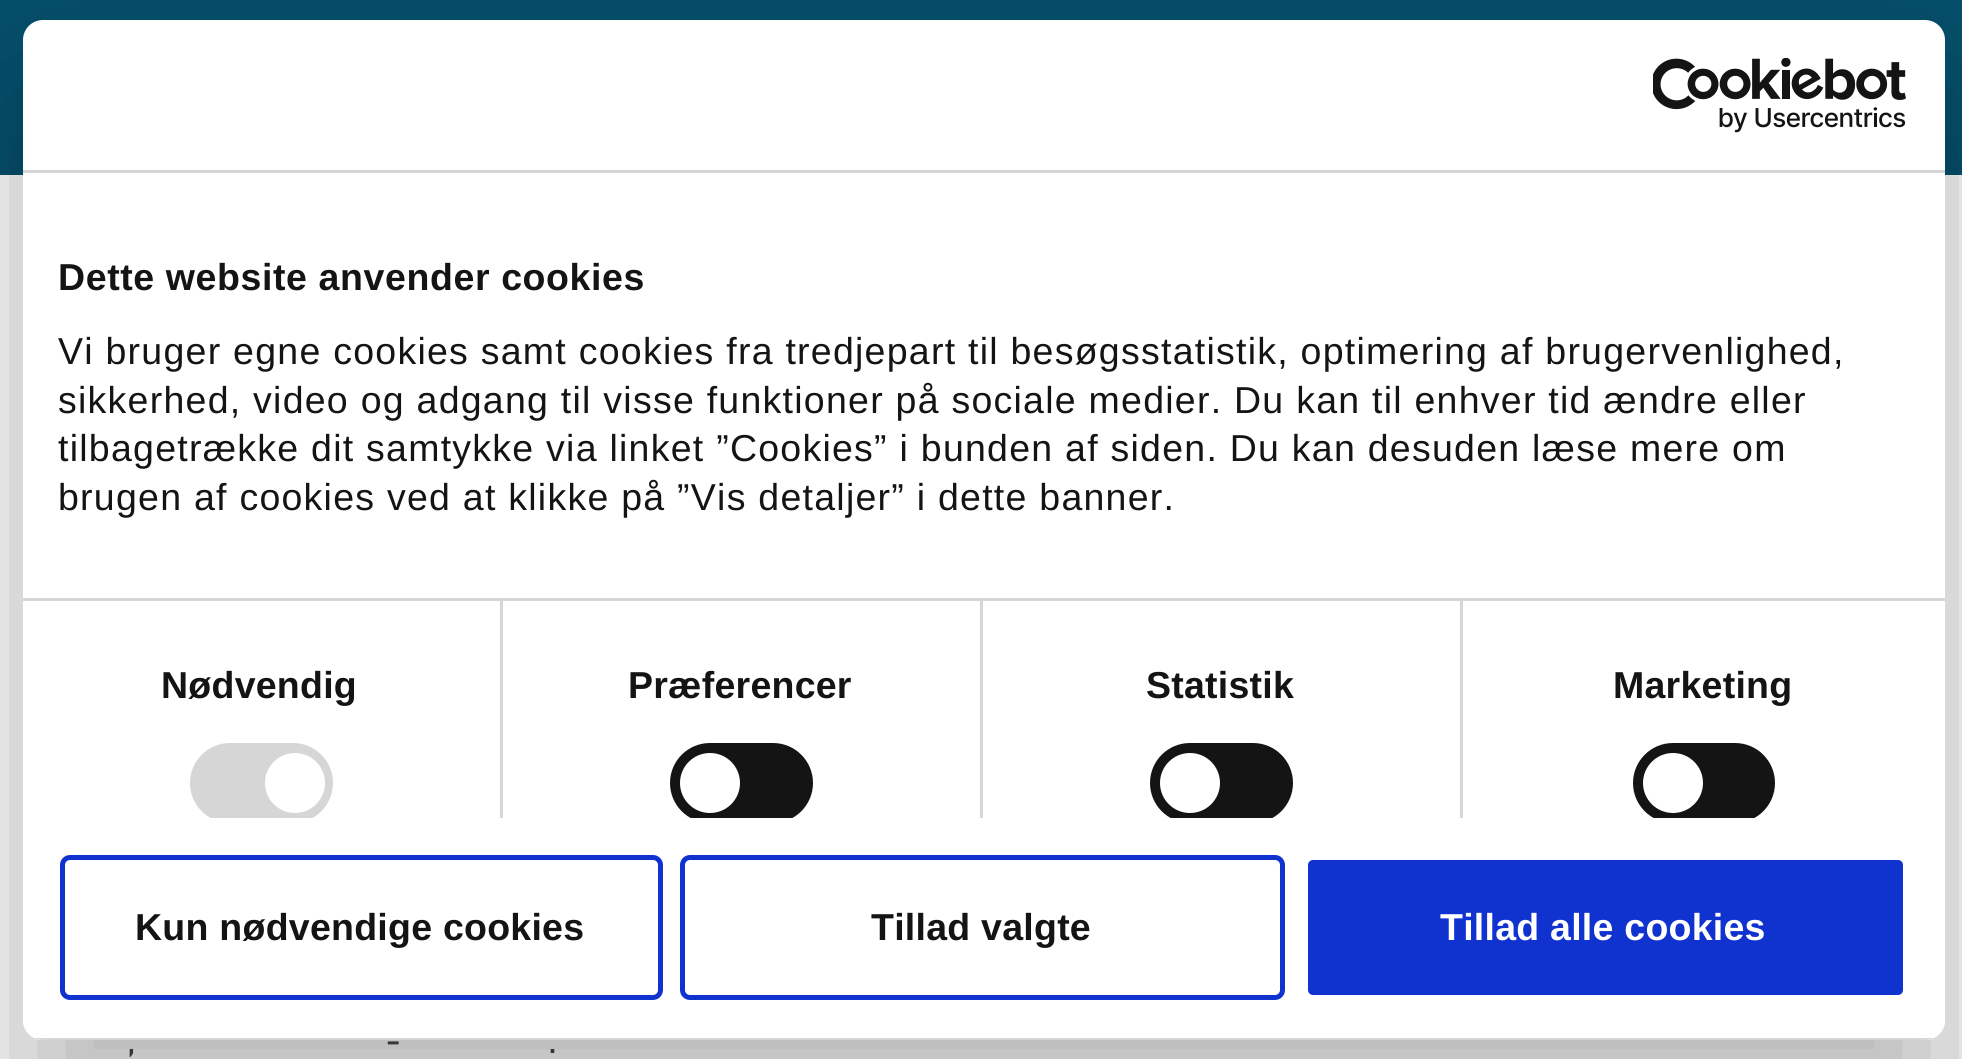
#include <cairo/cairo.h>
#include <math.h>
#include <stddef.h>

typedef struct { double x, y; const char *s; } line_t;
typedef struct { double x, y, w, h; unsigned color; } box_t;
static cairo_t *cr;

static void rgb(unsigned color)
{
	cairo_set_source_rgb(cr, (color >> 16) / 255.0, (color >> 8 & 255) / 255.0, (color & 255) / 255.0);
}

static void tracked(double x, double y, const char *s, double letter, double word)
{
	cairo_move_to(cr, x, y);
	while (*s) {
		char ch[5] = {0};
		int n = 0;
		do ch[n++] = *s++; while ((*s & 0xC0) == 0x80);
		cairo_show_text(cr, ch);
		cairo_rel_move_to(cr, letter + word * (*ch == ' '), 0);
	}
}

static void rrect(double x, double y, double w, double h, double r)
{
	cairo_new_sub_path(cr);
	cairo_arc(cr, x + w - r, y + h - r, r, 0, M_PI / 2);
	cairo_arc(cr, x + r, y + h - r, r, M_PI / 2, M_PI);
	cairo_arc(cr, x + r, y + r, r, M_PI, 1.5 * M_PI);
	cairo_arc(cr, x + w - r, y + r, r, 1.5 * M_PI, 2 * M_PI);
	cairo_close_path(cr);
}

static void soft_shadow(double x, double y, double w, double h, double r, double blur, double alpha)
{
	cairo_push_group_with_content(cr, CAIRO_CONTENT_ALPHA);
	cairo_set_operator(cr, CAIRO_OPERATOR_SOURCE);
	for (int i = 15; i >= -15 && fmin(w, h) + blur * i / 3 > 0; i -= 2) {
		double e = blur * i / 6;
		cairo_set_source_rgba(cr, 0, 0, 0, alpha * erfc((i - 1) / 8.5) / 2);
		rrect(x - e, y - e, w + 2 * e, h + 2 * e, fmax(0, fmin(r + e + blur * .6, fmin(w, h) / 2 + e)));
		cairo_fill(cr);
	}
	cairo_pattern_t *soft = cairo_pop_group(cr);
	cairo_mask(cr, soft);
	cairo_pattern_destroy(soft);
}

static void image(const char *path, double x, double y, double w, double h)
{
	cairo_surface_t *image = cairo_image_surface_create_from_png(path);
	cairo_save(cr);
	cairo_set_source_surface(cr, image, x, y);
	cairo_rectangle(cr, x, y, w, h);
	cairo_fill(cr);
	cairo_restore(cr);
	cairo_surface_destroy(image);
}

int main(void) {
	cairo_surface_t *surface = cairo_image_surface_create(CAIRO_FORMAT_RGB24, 1962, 1059);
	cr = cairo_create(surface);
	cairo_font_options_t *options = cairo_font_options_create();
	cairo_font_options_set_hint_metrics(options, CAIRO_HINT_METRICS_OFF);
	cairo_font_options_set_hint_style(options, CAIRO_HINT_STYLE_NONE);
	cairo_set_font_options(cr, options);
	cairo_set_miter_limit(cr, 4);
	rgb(0xffffff);
	cairo_paint(cr);
	rgb(0x05506c);
	cairo_rectangle(cr, 0, 0, 1962, 175);
	cairo_fill(cr);
	cairo_save(cr);
	cairo_set_fill_rule(cr, CAIRO_FILL_RULE_EVEN_ODD);
	cairo_new_path(cr);
	cairo_move_to(cr, 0, 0);
	cairo_line_to(cr, 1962, 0);
	cairo_line_to(cr, 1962, 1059);
	cairo_line_to(cr, 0, 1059);
	cairo_close_path(cr);
	cairo_move_to(cr, 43, 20);
	cairo_line_to(cr, 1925, 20);
	cairo_curve_to(cr, 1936, 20, 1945, 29, 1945, 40);
	cairo_line_to(cr, 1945, 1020);
	cairo_curve_to(cr, 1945, 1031, 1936, 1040, 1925, 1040);
	cairo_line_to(cr, 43, 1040);
	cairo_curve_to(cr, 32, 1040, 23, 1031, 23, 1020);
	cairo_line_to(cr, 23, 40);
	cairo_curve_to(cr, 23, 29, 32, 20, 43, 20);
	cairo_close_path(cr);
	cairo_clip(cr);
	rgb(0x000000);
	soft_shadow(23, 100, 1922, 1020, 20, 85, 0.3);
	cairo_restore(cr);
	rgb(0xffffff);
	rrect(23, 20, 1922, 1020, 20);
	cairo_fill(cr);
	rgb(0xd6d6d6);
	cairo_rectangle(cr, 23, 170, 1922, 3);
	cairo_fill(cr);
	image("img/1.png", 1653, 58, 253, 75);
	{
		static const box_t items[] = {
			{500, 600, 3, 218, 0xd6d6d6},
			{980, 600, 3, 218, 0xd6d6d6},
			{1460, 600, 3, 218, 0xd6d6d6},
			{23, 598, 1922, 3, 0xd6d6d6},
		};
		for (size_t i = 0; i < sizeof items / sizeof *items; i++) {
			rgb(items[i].color);
			cairo_rectangle(cr, items[i].x, items[i].y, items[i].w, items[i].h);
			cairo_fill(cr);
		}
	}
	cairo_save(cr);
	cairo_rectangle(cr, 23, 173, 1922, 645);
	cairo_clip(cr);
	rrect(190, 743, 143, 80, 40);
	cairo_fill(cr);
	cairo_restore(cr);
	rgb(0xffffff);
	cairo_arc(cr, 295, 783, 30, 0, 2 * M_PI);
	cairo_fill(cr);
	cairo_save(cr);
	cairo_rectangle(cr, 23, 173, 1922, 645);
	cairo_clip(cr);
	rgb(0x141414);
	rrect(670, 743, 143, 80, 40);
	cairo_fill(cr);
	cairo_restore(cr);
	cairo_arc(cr, 710, 783, 30, 0, 2 * M_PI);
	cairo_fill(cr);
	cairo_save(cr);
	cairo_rectangle(cr, 23, 173, 1922, 645);
	cairo_clip(cr);
	rgb(0x141414);
	rrect(1150, 743, 143, 80, 40);
	cairo_fill(cr);
	cairo_restore(cr);
	cairo_arc(cr, 1190, 783, 30, 0, 2 * M_PI);
	cairo_fill(cr);
	cairo_save(cr);
	cairo_rectangle(cr, 23, 173, 1922, 645);
	cairo_clip(cr);
	rgb(0x141414);
	rrect(1633, 743, 142, 80, 40);
	cairo_fill(cr);
	cairo_restore(cr);
	cairo_arc(cr, 1673, 783, 30, 0, 2 * M_PI);
	cairo_fill(cr);
	cairo_save(cr);
	rrect(23, 20, 1922, 1020, 20);
	cairo_clip(cr);
	rgb(0xd6d6d6);
	cairo_rectangle(cr, 34, 1038, 1900, 2);
	cairo_fill(cr);
	cairo_restore(cr);
	rrect(62.5, 857.5, 598, 140, 7.5);
	rgb(0x1032cf);
	cairo_set_line_width(cr, 5);
	cairo_stroke(cr);
	rrect(682.5, 857.5, 600, 140, 7.5);
	cairo_stroke(cr);
	rrect(1305.5, 857.5, 600, 140, 7.5);
	cairo_fill_preserve(cr);
	rgb(0xffffff);
	cairo_stroke(cr);
	cairo_select_font_face(cr, "Liberation Sans", CAIRO_FONT_SLANT_NORMAL, CAIRO_FONT_WEIGHT_BOLD);
	cairo_set_font_size(cr, 37.5);
	rgb(0x141414);
	tracked(58, 290, "Dette website anvender cookies", 0.6, 0);
	cairo_select_font_face(cr, "Liberation Sans", CAIRO_FONT_SLANT_NORMAL, CAIRO_FONT_WEIGHT_NORMAL);
	{
		static const line_t items[] = {
			{58, 364, "Vi bruger egne cookies samt cookies fra tredjepart til besøgsstatistik, optimering af brugervenlighed,"},
			{58, 413, "sikkerhed, video og adgang til visse funktioner på sociale medier. Du kan til enhver tid ændre eller"},
			{58, 461, "tilbagetrække dit samtykke via linket ”Cookies” i bunden af siden. Du kan desuden læse mere om"},
			{58, 510, "brugen af cookies ved at klikke på ”Vis detaljer” i dette banner."},
		};
		for (size_t i = 0; i < sizeof items / sizeof *items; i++) {
			tracked(items[i].x, items[i].y, items[i].s, 1.25, 0);
		}
	}
	cairo_select_font_face(cr, "Liberation Sans", CAIRO_FONT_SLANT_NORMAL, CAIRO_FONT_WEIGHT_BOLD);
	{
		static const line_t items[] = {
			{161, 698, "Nødvendig"},
			{628, 698, "Præferencer"},
			{1146, 698, "Statistik"},
			{1613, 698, "Marketing"},
			{135, 940, "Kun nødvendige cookies"},
			{871, 940, "Tillad valgte"},
		};
		for (size_t i = 0; i < sizeof items / sizeof *items; i++) {
			tracked(items[i].x, items[i].y, items[i].s, 0.25, 0);
		}
	}
	rgb(0xffffff);
	tracked(1440, 940, "Tillad alle cookies", 0.25, 0);
	cairo_select_font_face(cr, "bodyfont", CAIRO_FONT_SLANT_NORMAL, CAIRO_FONT_WEIGHT_NORMAL);
	cairo_set_font_size(cr, 38);
	rgb(0x343536);
	{
		static const line_t items[] = {
			{386, 1053, "-"},
			{127, 1053, ","},
			{548, 1053, "."},
		};
		for (size_t i = 0; i < sizeof items / sizeof *items; i++) {
			cairo_move_to(cr, items[i].x, items[i].y);
			cairo_show_text(cr, items[i].s);
		}
	}
	cairo_surface_write_to_png(surface, "page.png");
	cairo_font_options_destroy(options);
	cairo_destroy(cr);
	cairo_surface_destroy(surface);
	return 0;
}
